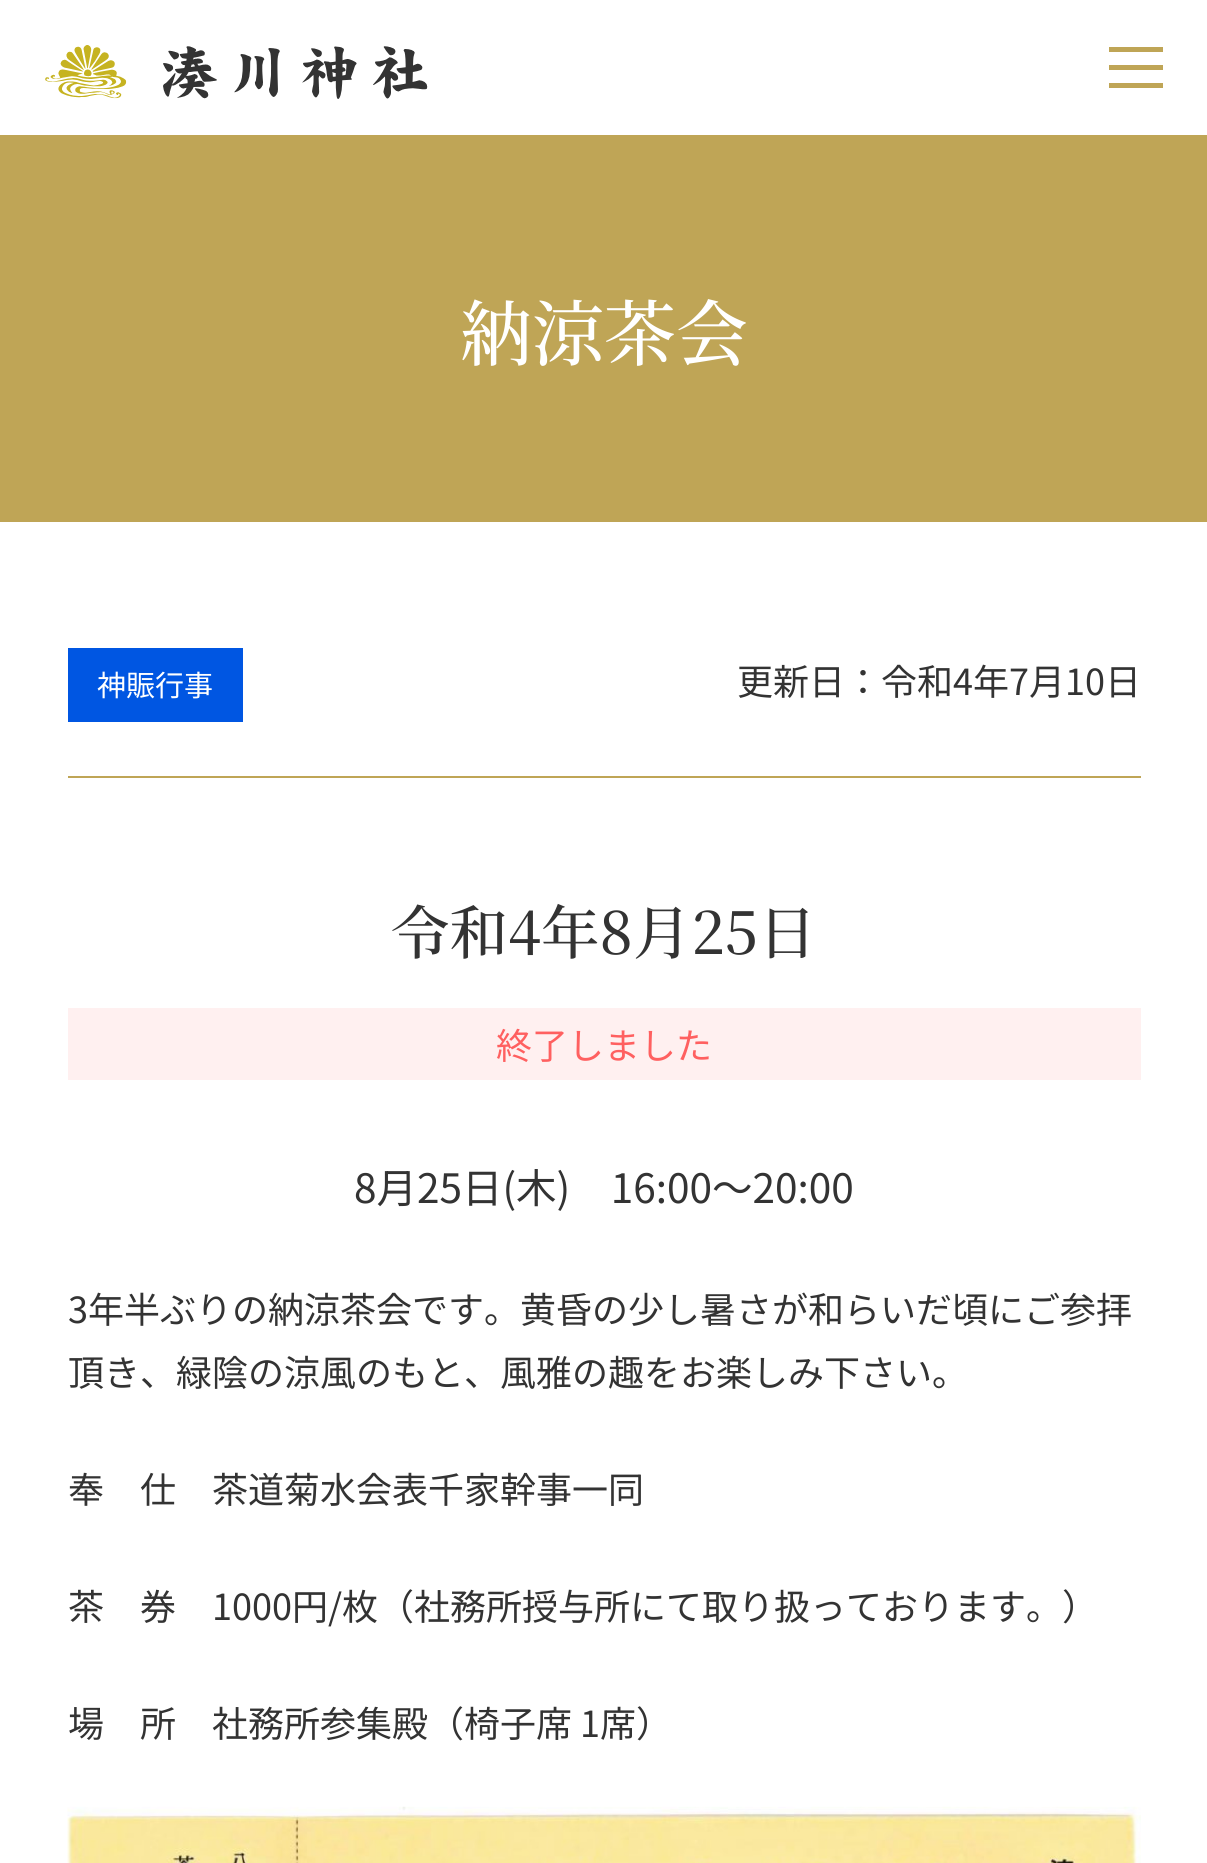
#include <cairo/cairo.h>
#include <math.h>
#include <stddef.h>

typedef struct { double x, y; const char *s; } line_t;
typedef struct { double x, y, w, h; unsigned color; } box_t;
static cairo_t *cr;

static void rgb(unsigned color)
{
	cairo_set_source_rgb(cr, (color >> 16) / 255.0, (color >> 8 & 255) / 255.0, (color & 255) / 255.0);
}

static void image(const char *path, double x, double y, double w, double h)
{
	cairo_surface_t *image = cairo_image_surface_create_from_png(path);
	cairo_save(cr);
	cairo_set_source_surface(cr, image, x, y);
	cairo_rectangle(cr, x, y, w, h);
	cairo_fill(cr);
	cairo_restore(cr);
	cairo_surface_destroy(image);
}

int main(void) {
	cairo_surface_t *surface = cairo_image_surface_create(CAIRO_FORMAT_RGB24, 1207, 1863);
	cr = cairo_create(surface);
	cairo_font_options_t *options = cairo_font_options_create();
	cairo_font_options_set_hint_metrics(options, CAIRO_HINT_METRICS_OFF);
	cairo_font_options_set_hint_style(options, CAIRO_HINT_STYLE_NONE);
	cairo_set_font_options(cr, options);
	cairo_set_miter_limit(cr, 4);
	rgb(0xffffff);
	cairo_paint(cr);
	image("img/1.png", 45, 45, 383, 54);
	{
		static const box_t items[] = {
			{1109, 47, 54, 5, 0xbfa556},
			{1109, 65, 54, 5, 0xbfa556},
			{1109, 83, 54, 5, 0xbfa556},
			{0, 135, 1207, 387, 0xbfa556},
			{68, 776, 1073, 2, 0xbfa556},
			{68, 648, 175, 74, 0x0056e2},
			{68, 1008, 1073, 72, 0xfff0f0},
		};
		for (size_t i = 0; i < sizeof items / sizeof *items; i++) {
			rgb(items[i].color);
			cairo_rectangle(cr, items[i].x, items[i].y, items[i].w, items[i].h);
			cairo_fill(cr);
		}
	}
	image("img/2.png", 67, 1806, 1074, 57);
	cairo_select_font_face(cr, "Noto Serif JP ExtraLight", CAIRO_FONT_SLANT_NORMAL, CAIRO_FONT_WEIGHT_NORMAL);
	cairo_set_font_size(cr, 72);
	rgb(0xffffff);
	cairo_move_to(cr, 460, 360);
	cairo_show_text(cr, "納涼茶会");
	cairo_select_font_face(cr, "Noto Sans JP", CAIRO_FONT_SLANT_NORMAL, CAIRO_FONT_WEIGHT_NORMAL);
	cairo_set_font_size(cr, 29);
	cairo_move_to(cr, 97, 696);
	cairo_show_text(cr, "神賑行事");
	cairo_set_font_size(cr, 36);
	rgb(0x333333);
	cairo_move_to(cr, 737, 695);
	cairo_show_text(cr, "更新日：令和4年7月10日");
	cairo_select_font_face(cr, "Noto Serif JP ExtraLight", CAIRO_FONT_SLANT_NORMAL, CAIRO_FONT_WEIGHT_NORMAL);
	cairo_set_font_size(cr, 58.5);
	cairo_move_to(cr, 391, 954);
	cairo_show_text(cr, "令和4年8月25日");
	cairo_select_font_face(cr, "Noto Sans JP", CAIRO_FONT_SLANT_NORMAL, CAIRO_FONT_WEIGHT_NORMAL);
	cairo_set_font_size(cr, 36);
	rgb(0xff6060);
	cairo_move_to(cr, 496, 1059);
	cairo_show_text(cr, "終了しました");
	cairo_set_font_size(cr, 40.5);
	rgb(0x333333);
	cairo_move_to(cr, 354, 1203);
	cairo_show_text(cr, "8月25日(木)　16:00～20:00");
	cairo_set_font_size(cr, 36);
	{
		static const line_t items[] = {
			{68, 1323, "3年半ぶりの納涼茶会です。黄昏の少し暑さが和らいだ頃にご参拝"},
			{68, 1386, "頂き、緑陰の涼風のもと、風雅の趣をお楽しみ下さい。"},
			{68, 1503, "奉　仕　茶道菊水会表千家幹事一同"},
			{68, 1620, "茶　券　1000円/枚（社務所授与所にて取り扱っております。）"},
			{68, 1737, "場　所　社務所参集殿（椅子席 1席）"},
		};
		for (size_t i = 0; i < sizeof items / sizeof *items; i++) {
			cairo_move_to(cr, items[i].x, items[i].y);
			cairo_show_text(cr, items[i].s);
		}
	}
	cairo_surface_write_to_png(surface, "page.png");
	cairo_font_options_destroy(options);
	cairo_destroy(cr);
	cairo_surface_destroy(surface);
	return 0;
}
